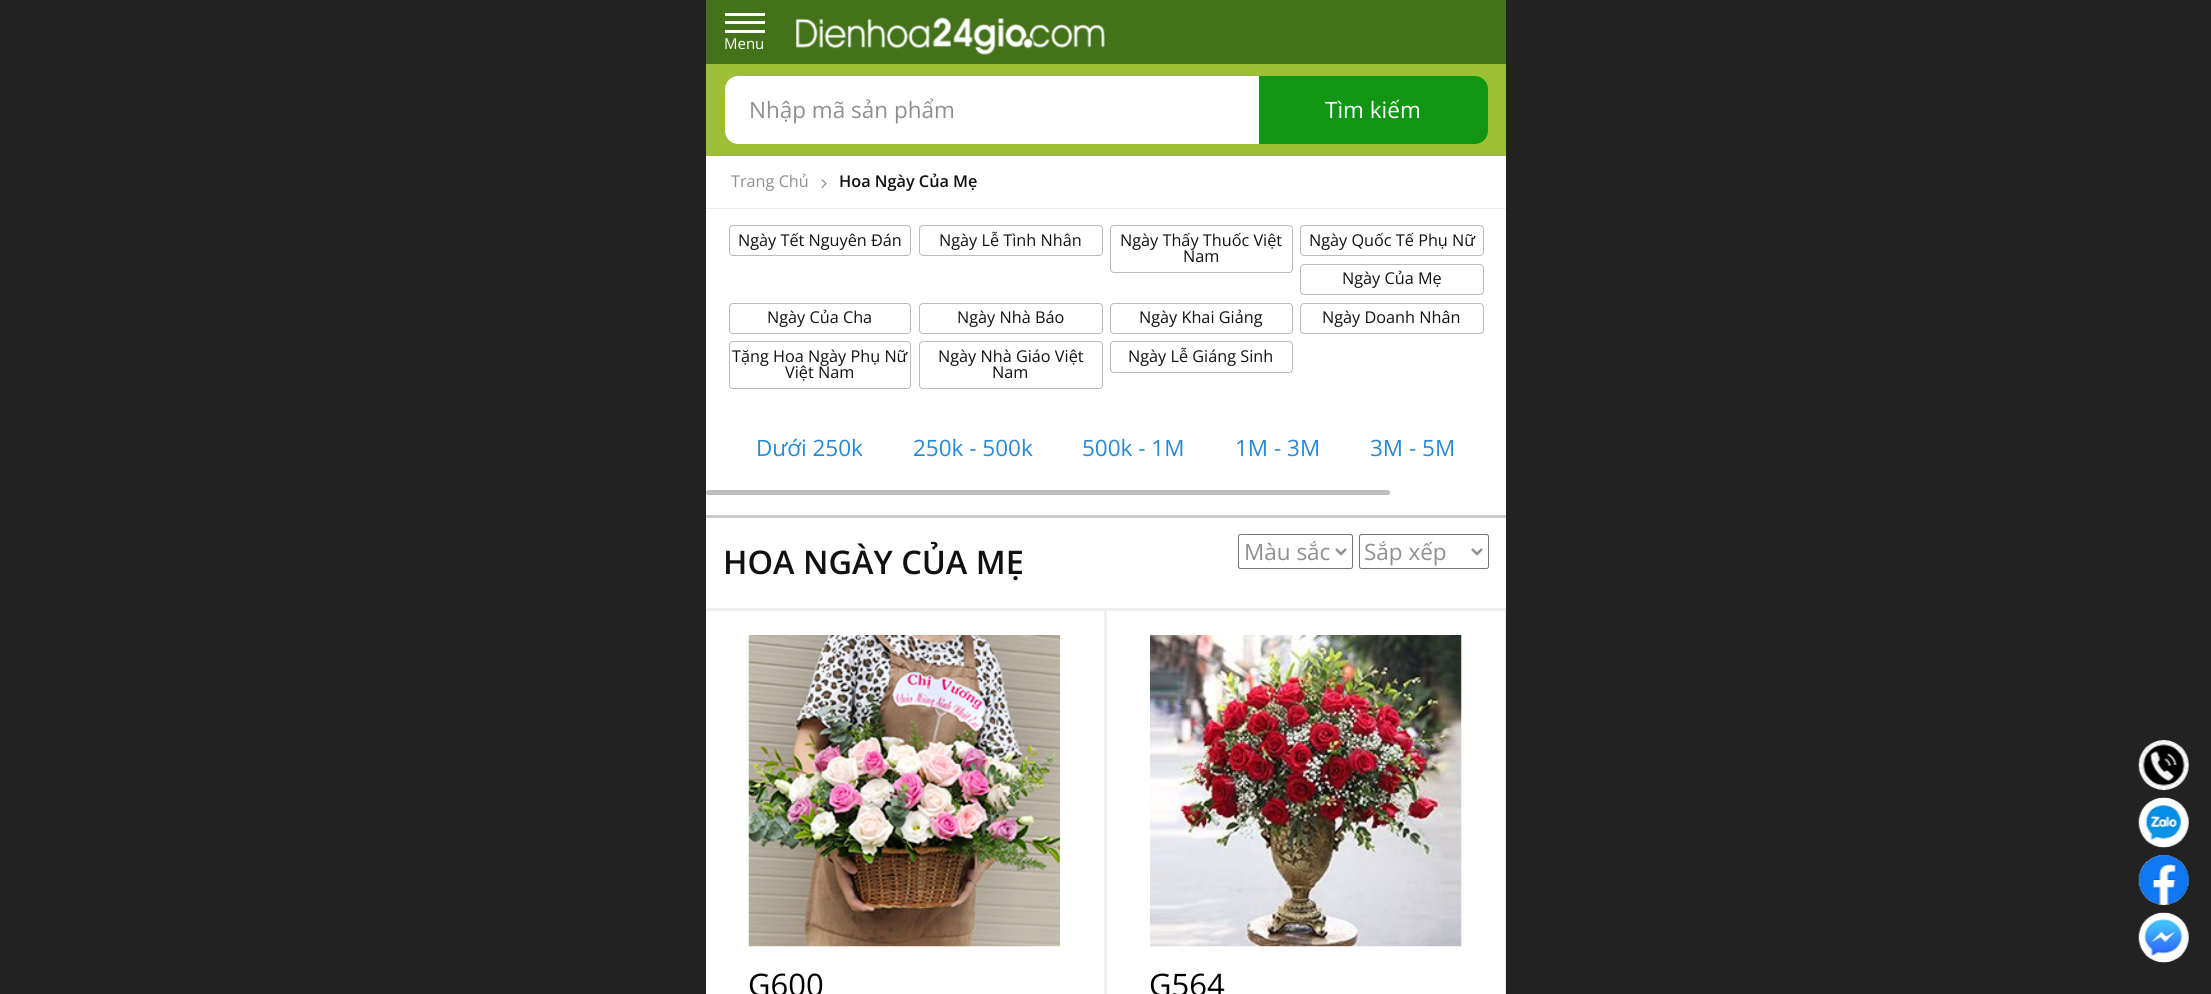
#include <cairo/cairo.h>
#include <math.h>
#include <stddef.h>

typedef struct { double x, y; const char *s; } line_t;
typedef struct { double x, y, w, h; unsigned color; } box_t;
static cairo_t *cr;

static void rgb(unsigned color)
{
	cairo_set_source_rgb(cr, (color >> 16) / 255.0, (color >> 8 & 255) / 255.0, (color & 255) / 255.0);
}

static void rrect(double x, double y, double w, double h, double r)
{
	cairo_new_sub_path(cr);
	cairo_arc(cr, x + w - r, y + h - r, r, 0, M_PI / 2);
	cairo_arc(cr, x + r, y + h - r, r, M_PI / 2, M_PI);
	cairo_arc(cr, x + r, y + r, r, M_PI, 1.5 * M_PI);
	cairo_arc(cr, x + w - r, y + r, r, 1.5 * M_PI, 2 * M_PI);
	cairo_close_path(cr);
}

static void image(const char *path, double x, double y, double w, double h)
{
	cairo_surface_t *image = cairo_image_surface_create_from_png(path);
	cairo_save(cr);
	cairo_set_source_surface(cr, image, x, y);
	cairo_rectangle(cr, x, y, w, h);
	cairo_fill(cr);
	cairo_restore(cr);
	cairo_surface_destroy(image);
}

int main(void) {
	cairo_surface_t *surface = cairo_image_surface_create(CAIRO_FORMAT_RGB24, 2211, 994);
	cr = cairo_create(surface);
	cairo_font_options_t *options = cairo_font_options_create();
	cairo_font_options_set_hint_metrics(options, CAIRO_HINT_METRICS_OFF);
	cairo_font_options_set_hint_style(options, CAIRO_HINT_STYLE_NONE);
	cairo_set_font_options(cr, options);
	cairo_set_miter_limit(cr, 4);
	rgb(0x222222);
	cairo_paint(cr);
	{
		static const box_t items[] = {
			{706, 156, 800, 838, 0xffffff},
			{706, 0, 800, 64, 0x44721a},
			{725, 21, 40, 3, 0xffffff},
			{725, 13, 40, 3, 0xffffff},
			{725, 30, 40, 3, 0xffffff},
		};
		for (size_t i = 0; i < sizeof items / sizeof *items; i++) {
			rgb(items[i].color);
			cairo_rectangle(cr, items[i].x, items[i].y, items[i].w, items[i].h);
			cairo_fill(cr);
		}
	}
	image("img/1.png", 796, 17, 309, 38);
	rgb(0x9dbf35);
	cairo_rectangle(cr, 706, 64, 800, 92);
	cairo_fill(cr);
	rgb(0xffffff);
	cairo_new_path(cr);
	cairo_move_to(cr, 738, 76);
	cairo_line_to(cr, 1259, 76);
	cairo_line_to(cr, 1259, 144);
	cairo_line_to(cr, 738, 144);
	cairo_curve_to(cr, 731, 144, 725, 138, 725, 131);
	cairo_line_to(cr, 725, 89);
	cairo_curve_to(cr, 725, 82, 731, 76, 738, 76);
	cairo_close_path(cr);
	cairo_fill(cr);
	rgb(0x109613);
	cairo_new_path(cr);
	cairo_move_to(cr, 1259, 76);
	cairo_line_to(cr, 1475, 76);
	cairo_curve_to(cr, 1482, 76, 1488, 82, 1488, 89);
	cairo_line_to(cr, 1488, 131);
	cairo_curve_to(cr, 1488, 138, 1482, 144, 1475, 144);
	cairo_line_to(cr, 1259, 144);
	cairo_close_path(cr);
	cairo_fill(cr);
	rgb(0xeeeeee);
	cairo_rectangle(cr, 706, 208, 800, 1);
	cairo_fill(cr);
	image("img/2.png", 821, 179, 6, 10);
	rrect(729.5, 225.5, 181, 30, 3.5);
	rgb(0xbbbbbb);
	cairo_set_line_width(cr, 1);
	cairo_stroke(cr);
	rrect(919.5, 225.5, 183, 30, 3.5);
	cairo_stroke(cr);
	rrect(1110.5, 225.5, 182, 47, 3.5);
	cairo_stroke(cr);
	rrect(1300.5, 225.5, 183, 30, 3.5);
	cairo_stroke(cr);
	rrect(1300.5, 264.5, 183, 30, 3.5);
	cairo_stroke(cr);
	rrect(729.5, 303.5, 181, 30, 3.5);
	cairo_stroke(cr);
	rrect(919.5, 303.5, 183, 30, 3.5);
	cairo_stroke(cr);
	rrect(1110.5, 303.5, 182, 30, 3.5);
	cairo_stroke(cr);
	rrect(1300.5, 303.5, 183, 30, 3.5);
	cairo_stroke(cr);
	rrect(729.5, 341.5, 181, 47, 3.5);
	cairo_stroke(cr);
	rrect(919.5, 341.5, 183, 47, 3.5);
	cairo_stroke(cr);
	rrect(1110.5, 341.5, 182, 31, 3.5);
	cairo_stroke(cr);
	rgb(0xcccccc);
	cairo_rectangle(cr, 706, 515, 800, 3);
	cairo_fill(cr);
	rgb(0xbfbebe);
	rrect(706, 490, 684, 5, 2.5);
	cairo_fill(cr);
	rrect(1238.5, 534.5, 114, 34, 2);
	rgb(0x767676);
	cairo_stroke(cr);
	cairo_new_path(cr);
	cairo_move_to(cr, 1336, 549);
	cairo_line_to(cr, 1341, 554);
	cairo_line_to(cr, 1346, 549);
	rgb(0x909090);
	cairo_set_line_width(cr, 2.5);
	cairo_stroke(cr);
	rrect(1359.5, 534.5, 129, 34, 2);
	rgb(0x767676);
	cairo_set_line_width(cr, 1);
	cairo_stroke(cr);
	cairo_new_path(cr);
	cairo_move_to(cr, 1472, 549);
	cairo_line_to(cr, 1477, 554);
	cairo_line_to(cr, 1482, 549);
	rgb(0x909090);
	cairo_set_line_width(cr, 2.5);
	cairo_stroke(cr);
	rgb(0xeeeeee);
	cairo_rectangle(cr, 706, 608, 400, 3);
	cairo_fill(cr);
	cairo_rectangle(cr, 1104, 608, 3, 386);
	cairo_fill(cr);
	image("img/3.png", 748, 635, 312, 312);
	cairo_rectangle(cr, 1106, 608, 400, 3);
	cairo_fill(cr);
	cairo_rectangle(cr, 1505, 608, 1, 386);
	cairo_fill(cr);
	image("img/4.png", 1150, 635, 312, 312);
	image("img/5.png", 2138, 740, 51, 50);
	image("img/6.png", 2138, 797, 51, 51);
	image("img/7.png", 2138, 855, 51, 50);
	image("img/8.png", 2138, 912, 51, 51);
	cairo_select_font_face(cr, "Open Sans", CAIRO_FONT_SLANT_NORMAL, CAIRO_FONT_WEIGHT_NORMAL);
	cairo_set_font_size(cr, 15);
	rgb(0xffffff);
	cairo_move_to(cr, 724, 49);
	cairo_show_text(cr, "Menu");
	cairo_set_font_size(cr, 22.5);
	rgb(0x8f8f8f);
	cairo_move_to(cr, 749, 118);
	cairo_show_text(cr, "Nhập mã sản phẩm");
	rgb(0xffffff);
	cairo_move_to(cr, 1325, 118);
	cairo_show_text(cr, "Tìm kiếm");
	cairo_set_font_size(cr, 16.25);
	rgb(0x8f8f8f);
	cairo_move_to(cr, 731, 187);
	cairo_show_text(cr, "Trang Chủ");
	cairo_select_font_face(cr, "Open Sans SemiBold", CAIRO_FONT_SLANT_NORMAL, CAIRO_FONT_WEIGHT_NORMAL);
	rgb(0x111111);
	cairo_move_to(cr, 839, 187);
	cairo_show_text(cr, "Hoa Ngày Của Mẹ");
	cairo_select_font_face(cr, "Open Sans", CAIRO_FONT_SLANT_NORMAL, CAIRO_FONT_WEIGHT_NORMAL);
	{
		static const line_t items[] = {
			{738, 246, "Ngày Tết Nguyên Đán"},
			{939, 246, "Ngày Lễ Tình Nhân"},
			{1120, 246, "Ngày Thấy Thuốc Việt"},
			{1183, 262, "Nam"},
			{1309, 246, "Ngày Quốc Tế Phụ Nữ"},
			{1342, 284, "Ngày Của Mẹ"},
			{767, 323, "Ngày Của Cha"},
			{957, 323, "Ngày Nhà Báo"},
			{1139, 323, "Ngày Khai Giảng"},
			{1322, 323, "Ngày Doanh Nhân"},
			{732, 362, "Tặng Hoa Ngày Phụ Nữ"},
			{785, 378, "Việt Nam"},
			{938, 362, "Ngày Nhà Giáo Việt"},
			{992, 378, "Nam"},
			{1128, 362, "Ngày Lễ Giáng Sinh"},
		};
		for (size_t i = 0; i < sizeof items / sizeof *items; i++) {
			cairo_move_to(cr, items[i].x, items[i].y);
			cairo_show_text(cr, items[i].s);
		}
	}
	cairo_set_font_size(cr, 22.5);
	rgb(0x2788d5);
	{
		static const line_t items[] = {
			{756, 456, "Dưới 250k"},
			{913, 456, "250k - 500k"},
			{1082, 456, "500k - 1M"},
			{1235, 456, "1M - 3M"},
			{1370, 456, "3M - 5M"},
		};
		for (size_t i = 0; i < sizeof items / sizeof *items; i++) {
			cairo_move_to(cr, items[i].x, items[i].y);
			cairo_show_text(cr, items[i].s);
		}
	}
	cairo_select_font_face(cr, "Open Sans SemiBold", CAIRO_FONT_SLANT_NORMAL, CAIRO_FONT_WEIGHT_NORMAL);
	cairo_set_font_size(cr, 32.5);
	rgb(0x111111);
	cairo_move_to(cr, 723, 574);
	cairo_show_text(cr, "HOA NGÀY CỦA MẸ");
	cairo_select_font_face(cr, "Open Sans", CAIRO_FONT_SLANT_NORMAL, CAIRO_FONT_WEIGHT_NORMAL);
	cairo_set_font_size(cr, 22.5);
	rgb(0x8f8f8f);
	cairo_move_to(cr, 1244, 560);
	cairo_show_text(cr, "Màu sắc");
	cairo_move_to(cr, 1364, 560);
	cairo_show_text(cr, "Sắp xếp");
	cairo_set_font_size(cr, 31);
	rgb(0x000000);
	cairo_move_to(cr, 748, 996);
	cairo_show_text(cr, "G600");
	cairo_move_to(cr, 1149, 996);
	cairo_show_text(cr, "G564");
	cairo_surface_write_to_png(surface, "page.png");
	cairo_font_options_destroy(options);
	cairo_destroy(cr);
	cairo_surface_destroy(surface);
	return 0;
}
